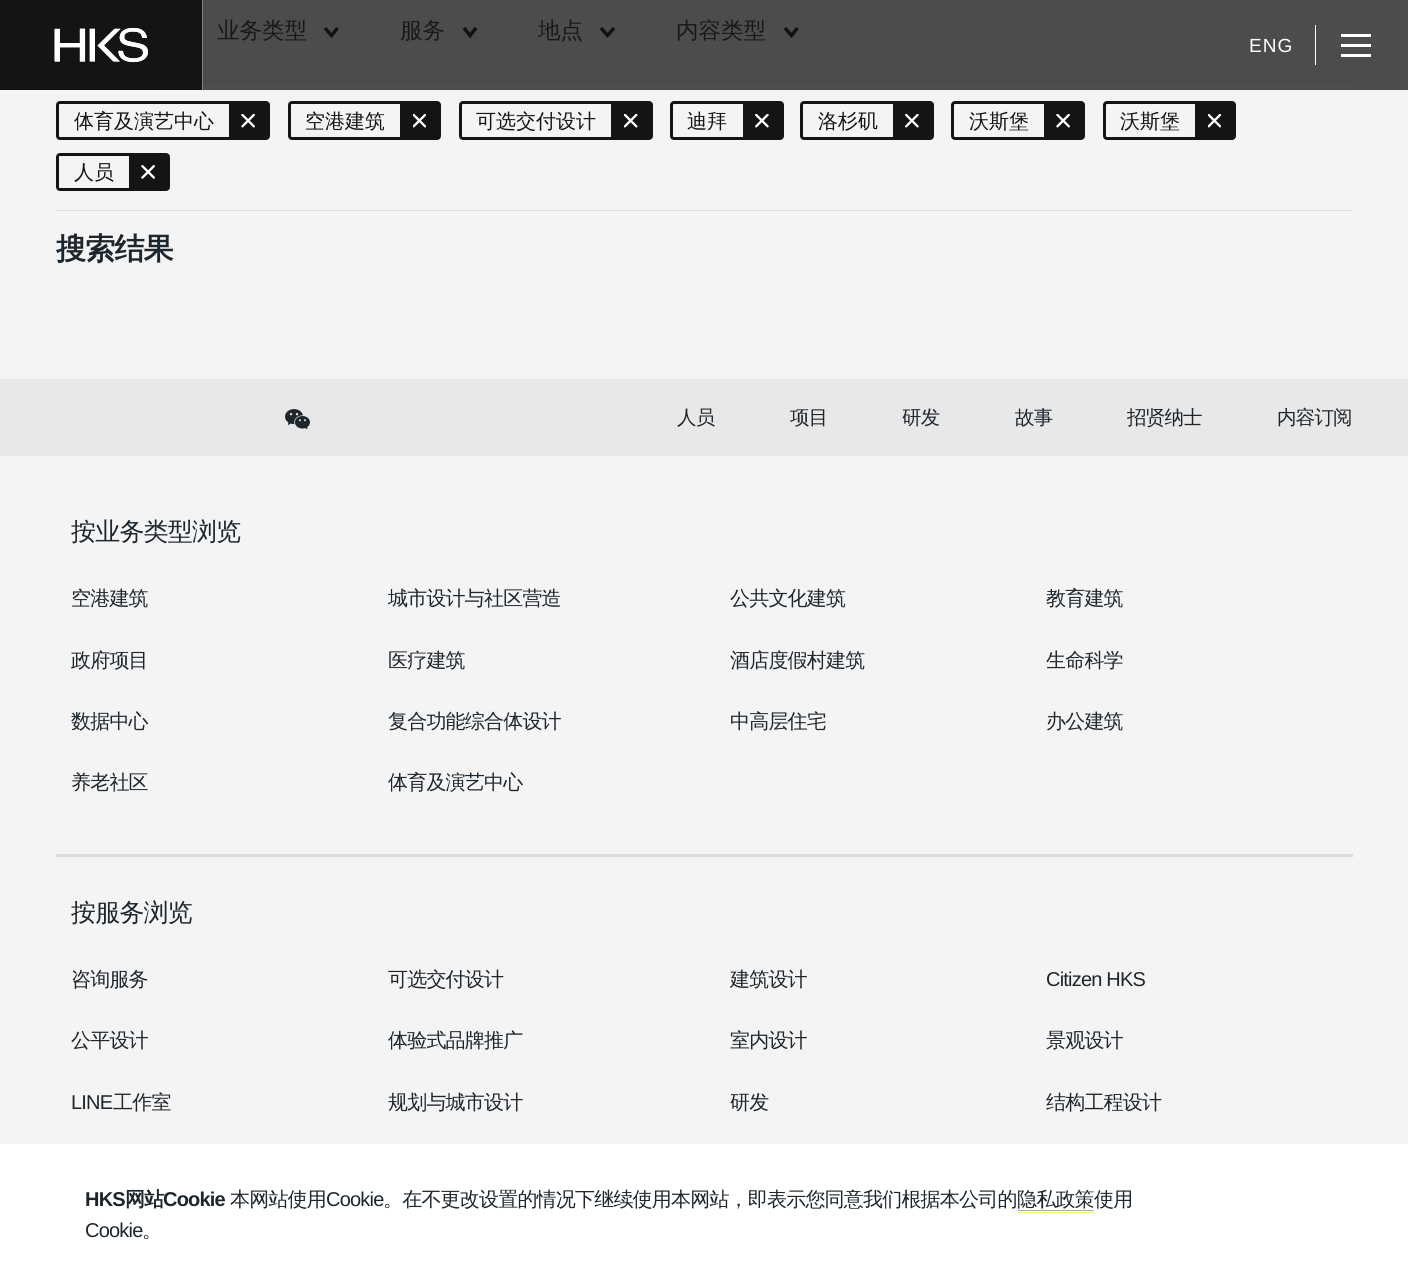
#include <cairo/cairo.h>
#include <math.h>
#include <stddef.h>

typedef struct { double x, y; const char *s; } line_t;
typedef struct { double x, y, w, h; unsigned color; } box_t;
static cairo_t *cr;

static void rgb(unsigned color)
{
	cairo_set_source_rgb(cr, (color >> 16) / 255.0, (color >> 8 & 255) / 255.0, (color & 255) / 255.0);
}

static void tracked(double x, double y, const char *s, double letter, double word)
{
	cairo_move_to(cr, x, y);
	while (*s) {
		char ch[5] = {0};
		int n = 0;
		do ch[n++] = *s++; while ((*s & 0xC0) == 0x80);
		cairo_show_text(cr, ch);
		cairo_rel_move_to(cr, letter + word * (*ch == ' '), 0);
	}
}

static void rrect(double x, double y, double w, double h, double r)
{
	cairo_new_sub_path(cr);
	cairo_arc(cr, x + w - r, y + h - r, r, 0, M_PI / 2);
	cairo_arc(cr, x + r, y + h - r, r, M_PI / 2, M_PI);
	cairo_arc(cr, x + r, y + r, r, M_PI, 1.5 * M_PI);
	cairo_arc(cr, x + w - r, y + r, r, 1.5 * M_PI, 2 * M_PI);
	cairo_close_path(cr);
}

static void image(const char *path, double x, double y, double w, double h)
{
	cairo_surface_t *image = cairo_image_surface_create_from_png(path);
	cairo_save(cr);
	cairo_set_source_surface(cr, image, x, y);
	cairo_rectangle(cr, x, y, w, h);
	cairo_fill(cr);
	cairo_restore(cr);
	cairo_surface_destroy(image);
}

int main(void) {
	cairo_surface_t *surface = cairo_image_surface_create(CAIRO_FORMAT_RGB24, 1408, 1281);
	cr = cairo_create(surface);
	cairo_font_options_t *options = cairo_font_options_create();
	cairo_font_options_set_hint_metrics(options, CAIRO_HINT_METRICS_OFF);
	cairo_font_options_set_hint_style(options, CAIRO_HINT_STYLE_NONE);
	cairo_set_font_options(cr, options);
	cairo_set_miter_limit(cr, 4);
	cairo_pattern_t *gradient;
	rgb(0xf4f4f4);
	cairo_paint(cr);
	rgb(0x4c4c4c);
	cairo_rectangle(cr, 203, 0, 1205, 90);
	cairo_fill(cr);
	cairo_new_path(cr);
	cairo_move_to(cr, 142.5, 28);
	cairo_line_to(cr, 149, 35.5);
	cairo_line_to(cr, 155, 28);
	rgb(0x070707);
	cairo_set_line_width(cr, 3.4);
	cairo_stroke(cr);
	cairo_new_path(cr);
	cairo_move_to(cr, 325, 28);
	cairo_line_to(cr, 331.5, 35.5);
	cairo_line_to(cr, 337.5, 28);
	rgb(0x111111);
	cairo_stroke(cr);
	cairo_new_path(cr);
	cairo_move_to(cr, 464, 28);
	cairo_line_to(cr, 470, 35.5);
	cairo_line_to(cr, 476, 28);
	cairo_stroke(cr);
	cairo_new_path(cr);
	cairo_move_to(cr, 601, 28);
	cairo_line_to(cr, 607.5, 35.5);
	cairo_line_to(cr, 614, 28);
	cairo_stroke(cr);
	cairo_new_path(cr);
	cairo_move_to(cr, 785, 28);
	cairo_line_to(cr, 791.5, 35.5);
	cairo_line_to(cr, 797.5, 28);
	cairo_stroke(cr);
	{
		static const box_t items[] = {
			{202, 81, 1, 1, 0xdcdcdc},
			{203, 81, 1150, 1, 0x464646},
			{56, 210, 1297, 1, 0xdcdcdc},
		};
		for (size_t i = 0; i < sizeof items / sizeof *items; i++) {
			rgb(items[i].color);
			cairo_rectangle(cr, items[i].x, items[i].y, items[i].w, items[i].h);
			cairo_fill(cr);
		}
	}
	rrect(57.5, 102.5, 211, 36, 2.5);
	rgb(0x141414);
	cairo_set_line_width(cr, 3);
	cairo_stroke(cr);
	cairo_rectangle(cr, 229, 104, 38, 33);
	cairo_fill(cr);
	image("img/1.png", 241, 114, 14, 14);
	rrect(289.5, 102.5, 150, 36, 2.5);
	cairo_stroke(cr);
	cairo_rectangle(cr, 400, 104, 38, 33);
	cairo_fill(cr);
	image("img/2.png", 413, 114, 13, 14);
	rrect(460.5, 102.5, 191, 36, 2.5);
	cairo_stroke(cr);
	cairo_rectangle(cr, 611, 104, 39, 33);
	cairo_fill(cr);
	image("img/3.png", 624, 114, 14, 14);
	rrect(671.5, 102.5, 111, 36, 2.5);
	cairo_stroke(cr);
	cairo_rectangle(cr, 743, 104, 38, 33);
	cairo_fill(cr);
	image("img/4.png", 755, 114, 14, 14);
	rrect(801.5, 102.5, 131, 36, 2.5);
	cairo_stroke(cr);
	cairo_rectangle(cr, 893, 104, 38, 33);
	cairo_fill(cr);
	image("img/4.png", 905, 114, 14, 14);
	rrect(952.5, 102.5, 131, 36, 2.5);
	cairo_stroke(cr);
	cairo_rectangle(cr, 1044, 104, 38, 33);
	cairo_fill(cr);
	image("img/1.png", 1056, 114, 14, 14);
	rrect(1104.5, 102.5, 130, 36, 2.5);
	cairo_stroke(cr);
	cairo_rectangle(cr, 1195, 104, 38, 33);
	cairo_fill(cr);
	image("img/2.png", 1208, 114, 13, 14);
	rrect(57.5, 154.5, 111, 35, 2.5);
	cairo_stroke(cr);
	cairo_rectangle(cr, 129, 156, 38, 32);
	cairo_fill(cr);
	image("img/5.png", 141, 165, 14, 14);
	image("img/6.png", 0, 0, 203, 90);
	{
		static const box_t items[] = {
			{1315, 25, 1, 40, 0xffffff},
			{1341, 34, 30, 3, 0xffffff},
			{1341, 44, 30, 3, 0xffffff},
			{1341, 54, 30, 3, 0xffffff},
			{0, 379, 1408, 77, 0xe8e8e8},
		};
		for (size_t i = 0; i < sizeof items / sizeof *items; i++) {
			rgb(items[i].color);
			cairo_rectangle(cr, items[i].x, items[i].y, items[i].w, items[i].h);
			cairo_fill(cr);
		}
	}
	image("img/7.png", 285, 409, 25, 20);
	rgb(0xdadbdd);
	cairo_rectangle(cr, 56, 854, 1297, 3);
	cairo_fill(cr);
	rgb(0xffffff);
	cairo_rectangle(cr, 0, 1144, 1408, 137);
	cairo_fill(cr);
	gradient = cairo_pattern_create_linear(1056, 1210, 1056, 1215);
	cairo_pattern_add_color_stop_rgba(gradient, 0, 1, 1, 1, 1);
	cairo_pattern_add_color_stop_rgba(gradient, 0.5, 1, 1, 1, 1);
	cairo_pattern_add_color_stop_rgba(gradient, 0.5, 0.902, 0.988, 0.345, 1);
	cairo_pattern_add_color_stop_rgba(gradient, 1, 0.902, 0.988, 0.345, 1);
	cairo_set_source(cr, gradient);
	cairo_pattern_destroy(gradient);
	cairo_rectangle(cr, 1018, 1212, 76, 1);
	cairo_fill(cr);
	rgb(0xa7a9ac);
	cairo_rectangle(cr, 1018, 1210, 76, 1);
	cairo_fill(cr);
	cairo_select_font_face(cr, "WenQuanYi Zen Hei Medium", CAIRO_FONT_SLANT_NORMAL, CAIRO_FONT_WEIGHT_NORMAL);
	cairo_set_font_size(cr, 22.5);
	rgb(0x16181a);
	{
		static const line_t items[] = {
			{217, 38, "业务类型"},
			{400, 38, "服务"},
			{538, 38, "地点"},
			{676, 38, "内容类型"},
		};
		for (size_t i = 0; i < sizeof items / sizeof *items; i++) {
			cairo_move_to(cr, items[i].x, items[i].y);
			cairo_show_text(cr, items[i].s);
		}
	}
	cairo_set_font_size(cr, 20);
	rgb(0x141414);
	{
		static const line_t items[] = {
			{74, 128, "体育及演艺中心"},
			{305, 128, "空港建筑"},
			{476, 128, "可选交付设计"},
			{687, 128, "迪拜"},
			{818, 128, "洛杉矶"},
			{969, 128, "沃斯堡"},
			{1120, 128, "沃斯堡"},
			{74, 179, "人员"},
		};
		for (size_t i = 0; i < sizeof items / sizeof *items; i++) {
			cairo_move_to(cr, items[i].x, items[i].y);
			cairo_show_text(cr, items[i].s);
		}
	}
	cairo_select_font_face(cr, "WenQuanYi Zen Hei", CAIRO_FONT_SLANT_NORMAL, CAIRO_FONT_WEIGHT_BOLD);
	cairo_set_font_size(cr, 30);
	rgb(0x1d252d);
	tracked(56, 259, "搜索结果", -0.8, 0);
	cairo_select_font_face(cr, "Liberation Sans", CAIRO_FONT_SLANT_NORMAL, CAIRO_FONT_WEIGHT_NORMAL);
	cairo_set_font_size(cr, 19);
	rgb(0xffffff);
	tracked(1249, 52, "ENG", 1, 0);
	cairo_select_font_face(cr, "WenQuanYi Zen Hei Medium", CAIRO_FONT_SLANT_NORMAL, CAIRO_FONT_WEIGHT_NORMAL);
	cairo_set_font_size(cr, 19.5);
	rgb(0x1d252d);
	{
		static const line_t items[] = {
			{677, 424, "人员"},
			{790, 424, "项目"},
			{902, 424, "研发"},
			{1015, 424, "故事"},
			{1127, 424, "招贤纳士"},
			{1277, 424, "内容订阅"},
		};
		for (size_t i = 0; i < sizeof items / sizeof *items; i++) {
			tracked(items[i].x, items[i].y, items[i].s, -0.8, 0);
		}
	}
	cairo_set_font_size(cr, 25);
	tracked(71, 540, "按业务类型浏览", -0.8, 0);
	cairo_set_font_size(cr, 20);
	{
		static const line_t items[] = {
			{71, 605, "空港建筑"},
			{388, 605, "城市设计与社区营造"},
			{730, 605, "公共文化建筑"},
			{1046, 605, "教育建筑"},
			{71, 667, "政府项目"},
			{388, 667, "医疗建筑"},
			{730, 667, "酒店度假村建筑"},
			{1046, 667, "生命科学"},
			{71, 728, "数据中心"},
			{388, 728, "复合功能综合体设计"},
			{730, 728, "中高层住宅"},
			{1046, 728, "办公建筑"},
			{71, 789, "养老社区"},
			{388, 789, "体育及演艺中心"},
		};
		for (size_t i = 0; i < sizeof items / sizeof *items; i++) {
			tracked(items[i].x, items[i].y, items[i].s, -0.8, 0);
		}
	}
	cairo_set_font_size(cr, 25);
	tracked(71, 921, "按服务浏览", -0.8, 0);
	cairo_set_font_size(cr, 20);
	{
		static const line_t items[] = {
			{71, 986, "咨询服务"},
			{388, 986, "可选交付设计"},
			{730, 986, "建筑设计"},
		};
		for (size_t i = 0; i < sizeof items / sizeof *items; i++) {
			tracked(items[i].x, items[i].y, items[i].s, -0.8, 0);
		}
	}
	cairo_select_font_face(cr, "Liberation Sans", CAIRO_FONT_SLANT_NORMAL, CAIRO_FONT_WEIGHT_NORMAL);
	tracked(1046, 986, "Citizen HKS", -0.8, 0);
	cairo_select_font_face(cr, "WenQuanYi Zen Hei Medium", CAIRO_FONT_SLANT_NORMAL, CAIRO_FONT_WEIGHT_NORMAL);
	{
		static const line_t items[] = {
			{71, 1047, "公平设计"},
			{388, 1047, "体验式品牌推广"},
			{730, 1047, "室内设计"},
			{1046, 1047, "景观设计"},
		};
		for (size_t i = 0; i < sizeof items / sizeof *items; i++) {
			tracked(items[i].x, items[i].y, items[i].s, -0.8, 0);
		}
	}
	cairo_select_font_face(cr, "Liberation Sans", CAIRO_FONT_SLANT_NORMAL, CAIRO_FONT_WEIGHT_NORMAL);
	tracked(71, 1109, "LINE", -0.8, 0);
	cairo_select_font_face(cr, "WenQuanYi Zen Hei Medium", CAIRO_FONT_SLANT_NORMAL, CAIRO_FONT_WEIGHT_NORMAL);
	{
		static const line_t items[] = {
			{113, 1109, "工作室"},
			{388, 1109, "规划与城市设计"},
			{730, 1109, "研发"},
			{1046, 1109, "结构工程设计"},
		};
		for (size_t i = 0; i < sizeof items / sizeof *items; i++) {
			tracked(items[i].x, items[i].y, items[i].s, -0.8, 0);
		}
	}
	cairo_select_font_face(cr, "Liberation Sans", CAIRO_FONT_SLANT_NORMAL, CAIRO_FONT_WEIGHT_BOLD);
	tracked(85, 1206, "HKS", -0.8, 0);
	cairo_select_font_face(cr, "WenQuanYi Zen Hei", CAIRO_FONT_SLANT_NORMAL, CAIRO_FONT_WEIGHT_BOLD);
	tracked(125, 1206, "网站", -0.8, 0);
	cairo_select_font_face(cr, "Liberation Sans", CAIRO_FONT_SLANT_NORMAL, CAIRO_FONT_WEIGHT_BOLD);
	tracked(163, 1206, "Cookie", -0.8, 0);
	cairo_select_font_face(cr, "WenQuanYi Zen Hei Medium", CAIRO_FONT_SLANT_NORMAL, CAIRO_FONT_WEIGHT_NORMAL);
	tracked(230, 1206, "本网站使用", -0.8, 0);
	cairo_select_font_face(cr, "Liberation Sans", CAIRO_FONT_SLANT_NORMAL, CAIRO_FONT_WEIGHT_NORMAL);
	tracked(326, 1206, "Cookie", -0.8, 0);
	cairo_select_font_face(cr, "WenQuanYi Zen Hei Medium", CAIRO_FONT_SLANT_NORMAL, CAIRO_FONT_WEIGHT_NORMAL);
	{
		static const line_t items[] = {
			{383, 1206, "。在不更改设置的情况下继续使用本网站，即表示您同意我们根据本公司的"},
			{1094, 1206, "使用"},
			{1017, 1206, "隐私政策"},
		};
		for (size_t i = 0; i < sizeof items / sizeof *items; i++) {
			tracked(items[i].x, items[i].y, items[i].s, -0.8, 0);
		}
	}
	cairo_select_font_face(cr, "Liberation Sans", CAIRO_FONT_SLANT_NORMAL, CAIRO_FONT_WEIGHT_NORMAL);
	tracked(85, 1237, "Cookie", -0.8, 0);
	cairo_select_font_face(cr, "WenQuanYi Zen Hei Medium", CAIRO_FONT_SLANT_NORMAL, CAIRO_FONT_WEIGHT_NORMAL);
	tracked(142, 1237, "。", -0.8, 0);
	cairo_surface_write_to_png(surface, "page.png");
	cairo_font_options_destroy(options);
	cairo_destroy(cr);
	cairo_surface_destroy(surface);
	return 0;
}
